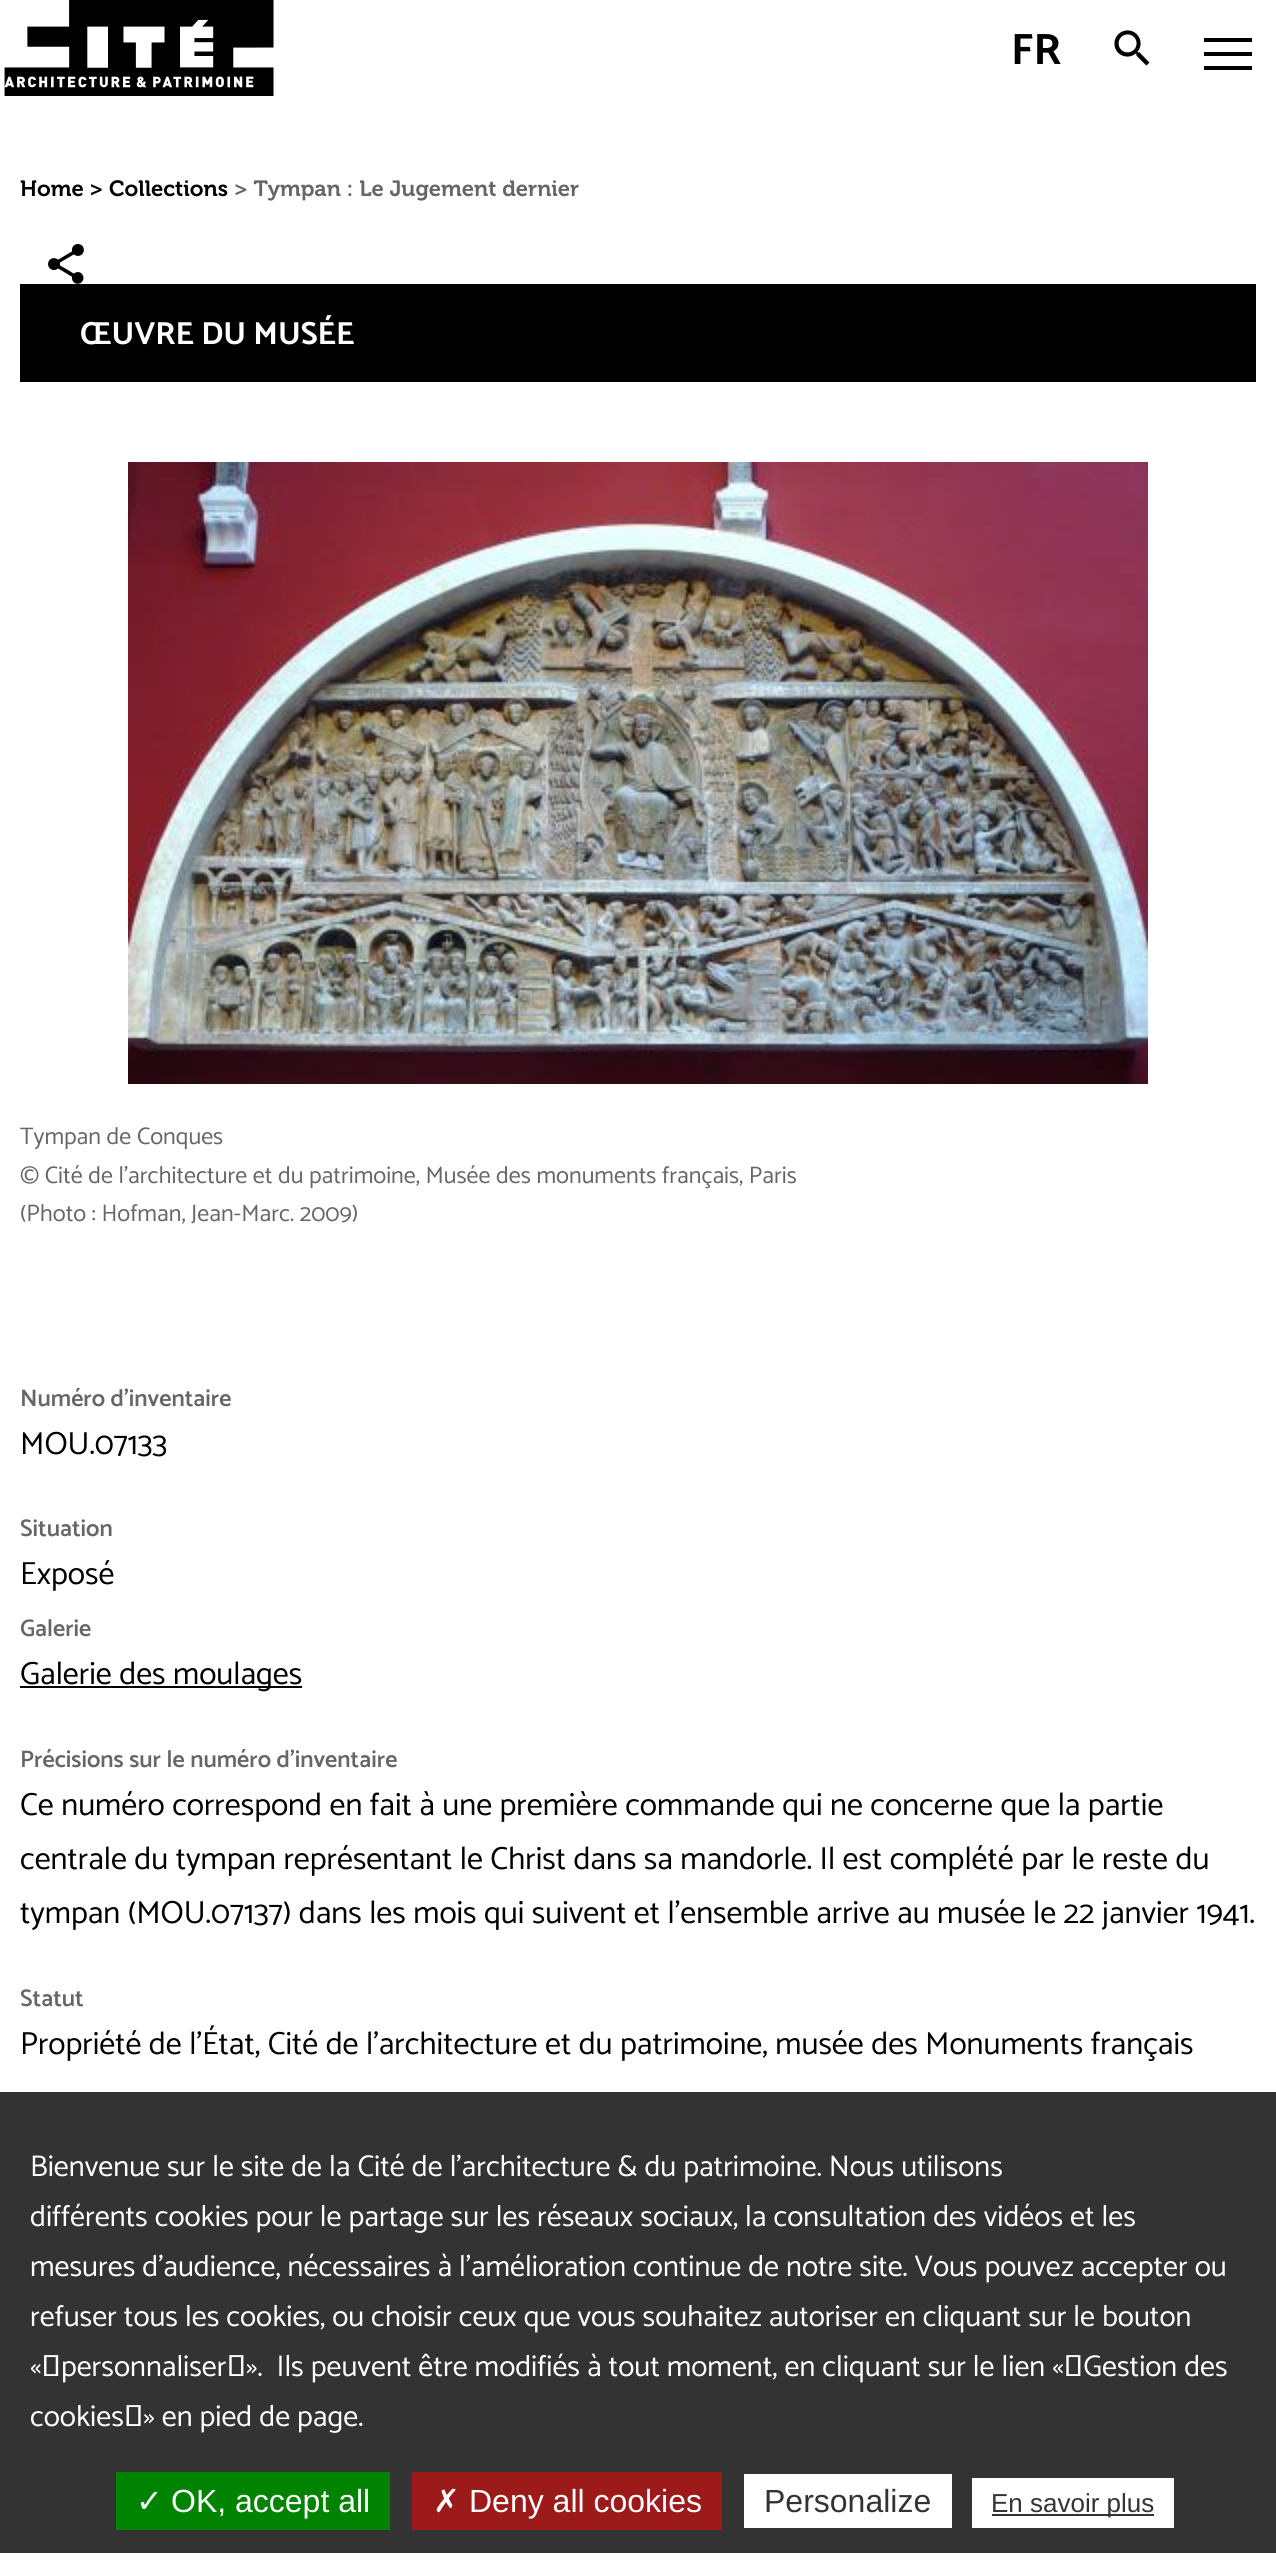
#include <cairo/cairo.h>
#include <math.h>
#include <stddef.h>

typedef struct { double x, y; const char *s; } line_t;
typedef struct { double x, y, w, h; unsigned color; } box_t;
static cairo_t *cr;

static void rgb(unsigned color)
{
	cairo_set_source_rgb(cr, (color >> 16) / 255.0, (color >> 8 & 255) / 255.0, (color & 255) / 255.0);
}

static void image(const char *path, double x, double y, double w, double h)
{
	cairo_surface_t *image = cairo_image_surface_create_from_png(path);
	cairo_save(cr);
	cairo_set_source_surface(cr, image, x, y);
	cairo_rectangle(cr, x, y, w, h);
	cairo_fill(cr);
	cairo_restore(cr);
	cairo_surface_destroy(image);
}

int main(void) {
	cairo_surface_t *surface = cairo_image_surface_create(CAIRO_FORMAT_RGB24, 1276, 2553);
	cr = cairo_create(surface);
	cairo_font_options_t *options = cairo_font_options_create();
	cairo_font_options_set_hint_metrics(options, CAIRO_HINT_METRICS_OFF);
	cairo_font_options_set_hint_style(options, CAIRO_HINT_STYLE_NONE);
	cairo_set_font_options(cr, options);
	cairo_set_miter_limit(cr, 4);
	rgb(0xffffff);
	cairo_paint(cr);
	image("img/1.png", 4, 0, 270, 96);
	image("img/2.png", 1114, 30, 36, 36);
	{
		static const box_t items[] = {
			{1204, 38, 48, 4, 0x000000},
			{1204, 52, 48, 4, 0x000000},
			{1204, 66, 48, 4, 0x000000},
		};
		for (size_t i = 0; i < sizeof items / sizeof *items; i++) {
			rgb(items[i].color);
			cairo_rectangle(cr, items[i].x, items[i].y, items[i].w, items[i].h);
			cairo_fill(cr);
		}
	}
	image("img/3.png", 48, 244, 36, 40);
	cairo_rectangle(cr, 20, 284, 1236, 98);
	cairo_fill(cr);
	image("img/4.png", 128, 462, 1020, 622);
	{
		static const box_t items[] = {
			{20, 1686, 282, 2, 0x000000},
			{0, 2092, 1276, 461, 0x333333},
			{116, 2472, 274, 58, 0x008300},
			{412, 2472, 310, 58, 0x9c1a1a},
			{744, 2474, 208, 54, 0xffffff},
			{972, 2478, 202, 50, 0xffffff},
			{992, 2514, 162, 2, 0x333333},
		};
		for (size_t i = 0; i < sizeof items / sizeof *items; i++) {
			rgb(items[i].color);
			cairo_rectangle(cr, items[i].x, items[i].y, items[i].w, items[i].h);
			cairo_fill(cr);
		}
	}
	cairo_select_font_face(cr, "Catamaran", CAIRO_FONT_SLANT_NORMAL, CAIRO_FONT_WEIGHT_BOLD);
	cairo_set_font_size(cr, 44);
	rgb(0x000000);
	cairo_move_to(cr, 1011, 64);
	cairo_show_text(cr, "FR");
	cairo_select_font_face(cr, "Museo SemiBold", CAIRO_FONT_SLANT_NORMAL, CAIRO_FONT_WEIGHT_NORMAL);
	cairo_set_font_size(cr, 22);
	cairo_move_to(cr, 20, 196);
	cairo_show_text(cr, "Home > Collections");
	rgb(0x666666);
	cairo_move_to(cr, 234, 196);
	cairo_show_text(cr, "> Tympan : Le Jugement dernier");
	cairo_select_font_face(cr, "Catamaran", CAIRO_FONT_SLANT_NORMAL, CAIRO_FONT_WEIGHT_BOLD);
	cairo_set_font_size(cr, 32);
	rgb(0xffffff);
	cairo_move_to(cr, 80, 344);
	cairo_show_text(cr, "ŒUVRE DU MUSÉE");
	cairo_select_font_face(cr, "Catamaran", CAIRO_FONT_SLANT_NORMAL, CAIRO_FONT_WEIGHT_NORMAL);
	cairo_set_font_size(cr, 24);
	rgb(0x666666);
	{
		static const line_t items[] = {
			{20, 1144, "Tympan de Conques"},
			{20, 1183, "© Cité de l'architecture et du patrimoine, Musée des monuments français, Paris"},
			{20, 1221, "(Photo : Hofman, Jean-Marc. 2009)"},
		};
		for (size_t i = 0; i < sizeof items / sizeof *items; i++) {
			cairo_move_to(cr, items[i].x, items[i].y);
			cairo_show_text(cr, items[i].s);
		}
	}
	cairo_select_font_face(cr, "Catamaran SemiBold", CAIRO_FONT_SLANT_NORMAL, CAIRO_FONT_WEIGHT_NORMAL);
	cairo_move_to(cr, 20, 1406);
	cairo_show_text(cr, "Numéro d'inventaire");
	cairo_select_font_face(cr, "Catamaran", CAIRO_FONT_SLANT_NORMAL, CAIRO_FONT_WEIGHT_NORMAL);
	cairo_set_font_size(cr, 32);
	rgb(0x000000);
	cairo_move_to(cr, 20, 1454);
	cairo_show_text(cr, "MOU.07133");
	cairo_select_font_face(cr, "Catamaran SemiBold", CAIRO_FONT_SLANT_NORMAL, CAIRO_FONT_WEIGHT_NORMAL);
	cairo_set_font_size(cr, 24);
	rgb(0x666666);
	cairo_move_to(cr, 20, 1536);
	cairo_show_text(cr, "Situation");
	cairo_select_font_face(cr, "Catamaran", CAIRO_FONT_SLANT_NORMAL, CAIRO_FONT_WEIGHT_NORMAL);
	cairo_set_font_size(cr, 32);
	rgb(0x000000);
	cairo_move_to(cr, 20, 1584);
	cairo_show_text(cr, "Exposé");
	cairo_select_font_face(cr, "Catamaran SemiBold", CAIRO_FONT_SLANT_NORMAL, CAIRO_FONT_WEIGHT_NORMAL);
	cairo_set_font_size(cr, 24);
	rgb(0x666666);
	cairo_move_to(cr, 20, 1636);
	cairo_show_text(cr, "Galerie");
	cairo_select_font_face(cr, "Catamaran", CAIRO_FONT_SLANT_NORMAL, CAIRO_FONT_WEIGHT_NORMAL);
	cairo_set_font_size(cr, 32);
	rgb(0x000000);
	cairo_move_to(cr, 20, 1684);
	cairo_show_text(cr, "Galerie des moulages");
	cairo_select_font_face(cr, "Catamaran SemiBold", CAIRO_FONT_SLANT_NORMAL, CAIRO_FONT_WEIGHT_NORMAL);
	cairo_set_font_size(cr, 24);
	rgb(0x666666);
	cairo_move_to(cr, 20, 1767);
	cairo_show_text(cr, "Précisions sur le numéro d'inventaire");
	cairo_select_font_face(cr, "Catamaran", CAIRO_FONT_SLANT_NORMAL, CAIRO_FONT_WEIGHT_NORMAL);
	cairo_set_font_size(cr, 32);
	rgb(0x000000);
	{
		static const line_t items[] = {
			{20, 1815, "Ce numéro correspond en fait à une première commande qui ne concerne que la partie"},
			{20, 1869, "centrale du tympan représentant le Christ dans sa mandorle. Il est complété par le reste du"},
			{20, 1923, "tympan (MOU.07137) dans les mois qui suivent et l'ensemble arrive au musée le 22 janvier 1941."},
		};
		for (size_t i = 0; i < sizeof items / sizeof *items; i++) {
			cairo_move_to(cr, items[i].x, items[i].y);
			cairo_show_text(cr, items[i].s);
		}
	}
	cairo_select_font_face(cr, "Catamaran SemiBold", CAIRO_FONT_SLANT_NORMAL, CAIRO_FONT_WEIGHT_NORMAL);
	cairo_set_font_size(cr, 24);
	rgb(0x666666);
	cairo_move_to(cr, 20, 2006);
	cairo_show_text(cr, "Statut");
	cairo_select_font_face(cr, "Catamaran", CAIRO_FONT_SLANT_NORMAL, CAIRO_FONT_WEIGHT_NORMAL);
	cairo_set_font_size(cr, 32);
	rgb(0x000000);
	cairo_move_to(cr, 20, 2054);
	cairo_show_text(cr, "Propriété de l’État, Cité de l’architecture et du patrimoine, musée des Monuments français");
	cairo_set_font_size(cr, 30);
	rgb(0xffffff);
	{
		static const line_t items[] = {
			{30, 2176, "Bienvenue sur le site de la Cité de l’architecture & du patrimoine. Nous utilisons"},
			{30, 2226, "différents cookies pour le partage sur les réseaux sociaux, la consultation des vidéos et les"},
			{30, 2276, "mesures d’audience, nécessaires à l’amélioration continue de notre site. Vous pouvez accepter ou"},
			{30, 2326, "refuser tous les cookies, ou choisir ceux que vous souhaitez autoriser en cliquant sur le bouton"},
			{30, 2376, "« personnaliser ».  Ils peuvent être modifiés à tout moment, en cliquant sur le lien « Gestion des"},
			{30, 2426, "cookies » en pied de page."},
		};
		for (size_t i = 0; i < sizeof items / sizeof *items; i++) {
			cairo_move_to(cr, items[i].x, items[i].y);
			cairo_show_text(cr, items[i].s);
		}
	}
	cairo_select_font_face(cr, "DejaVu Sans", CAIRO_FONT_SLANT_NORMAL, CAIRO_FONT_WEIGHT_NORMAL);
	cairo_set_font_size(cr, 32);
	cairo_move_to(cr, 136, 2512);
	cairo_show_text(cr, "✓");
	cairo_select_font_face(cr, "Liberation Sans", CAIRO_FONT_SLANT_NORMAL, CAIRO_FONT_WEIGHT_NORMAL);
	cairo_move_to(cr, 171, 2512);
	cairo_show_text(cr, "OK, accept all");
	cairo_select_font_face(cr, "DejaVu Sans", CAIRO_FONT_SLANT_NORMAL, CAIRO_FONT_WEIGHT_NORMAL);
	cairo_move_to(cr, 433, 2512);
	cairo_show_text(cr, "✗");
	cairo_select_font_face(cr, "Liberation Sans", CAIRO_FONT_SLANT_NORMAL, CAIRO_FONT_WEIGHT_NORMAL);
	cairo_move_to(cr, 469, 2512);
	cairo_show_text(cr, "Deny all cookies");
	rgb(0x333333);
	cairo_move_to(cr, 764, 2512);
	cairo_show_text(cr, "Personalize");
	cairo_set_font_size(cr, 26);
	cairo_move_to(cr, 991, 2512);
	cairo_show_text(cr, "En savoir plus");
	cairo_surface_write_to_png(surface, "page.png");
	cairo_font_options_destroy(options);
	cairo_destroy(cr);
	cairo_surface_destroy(surface);
	return 0;
}
